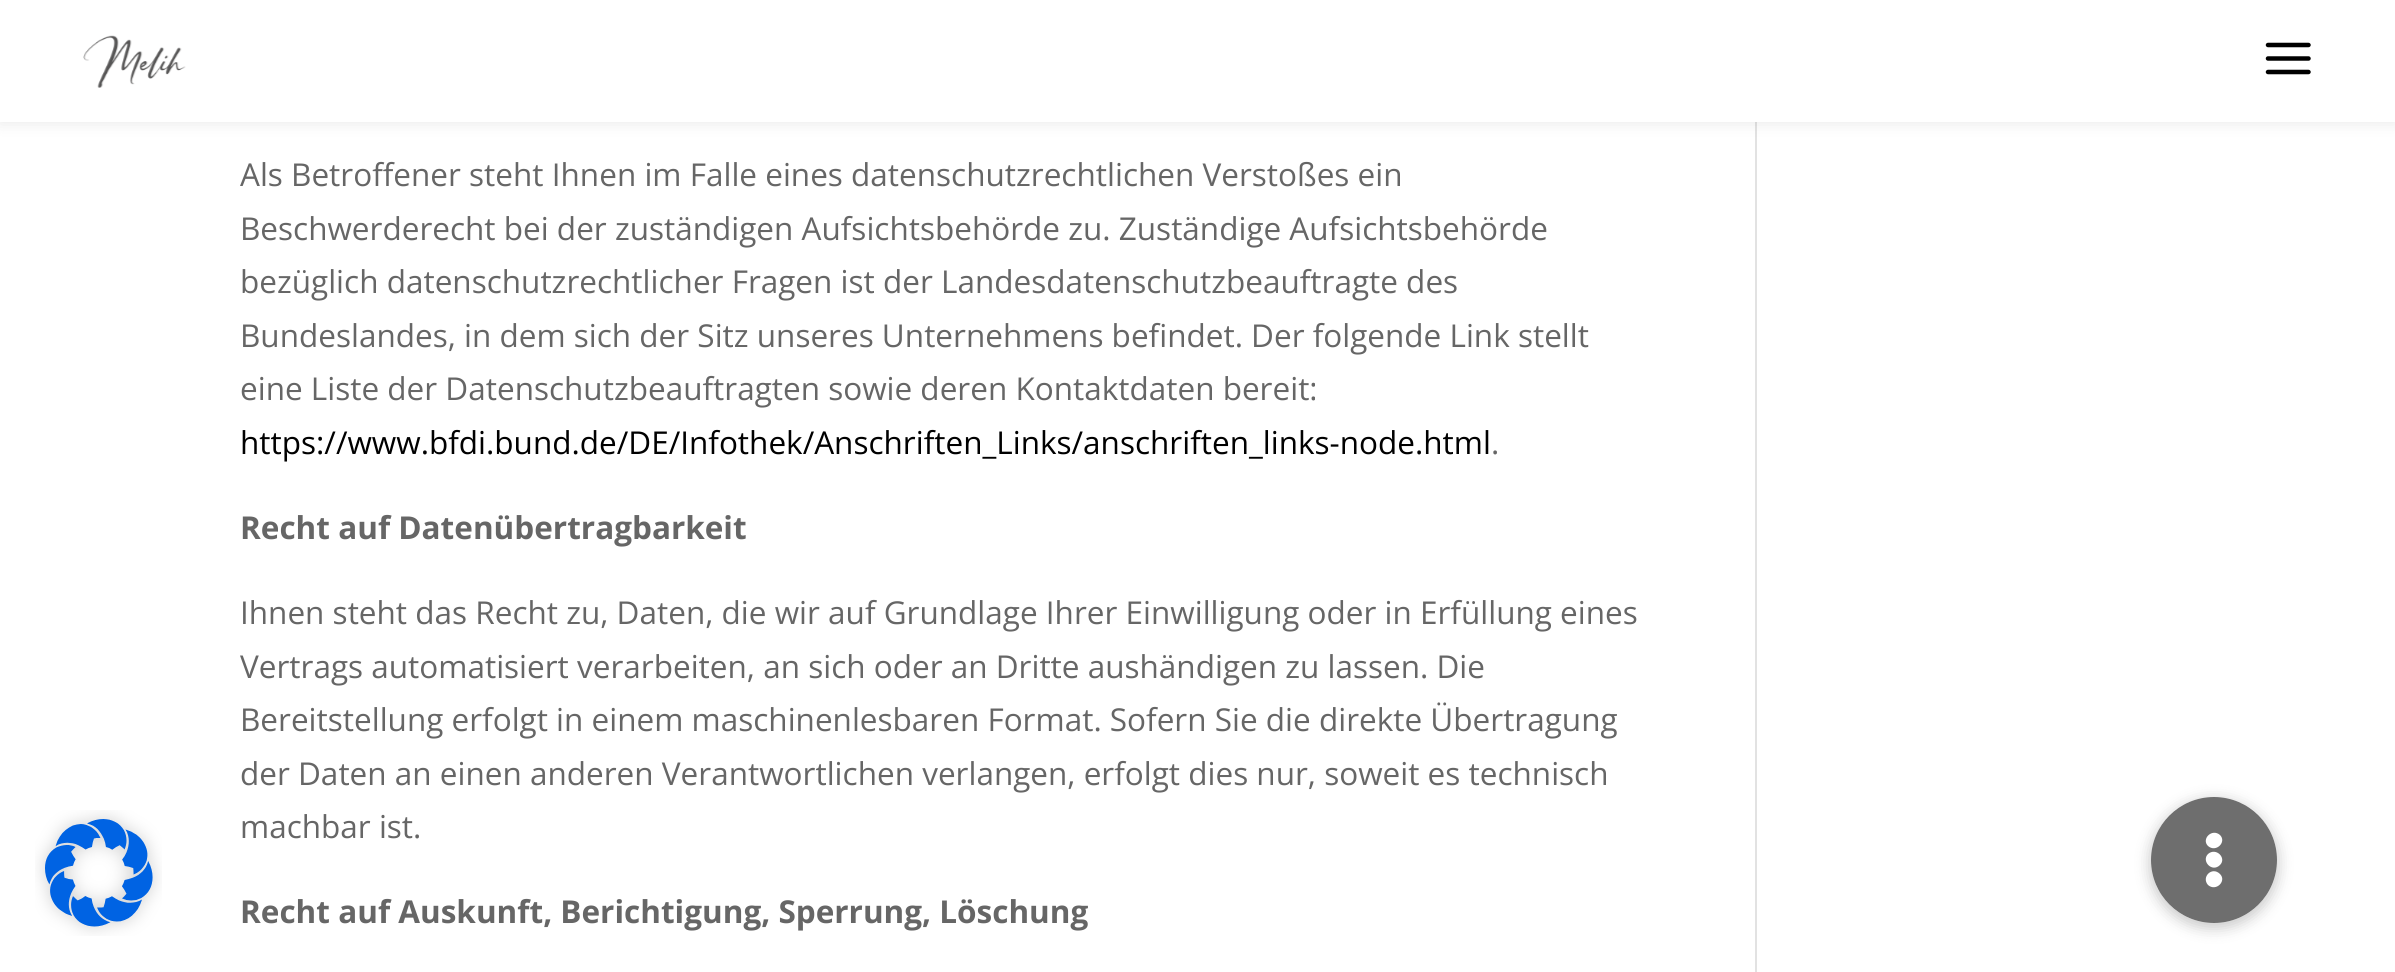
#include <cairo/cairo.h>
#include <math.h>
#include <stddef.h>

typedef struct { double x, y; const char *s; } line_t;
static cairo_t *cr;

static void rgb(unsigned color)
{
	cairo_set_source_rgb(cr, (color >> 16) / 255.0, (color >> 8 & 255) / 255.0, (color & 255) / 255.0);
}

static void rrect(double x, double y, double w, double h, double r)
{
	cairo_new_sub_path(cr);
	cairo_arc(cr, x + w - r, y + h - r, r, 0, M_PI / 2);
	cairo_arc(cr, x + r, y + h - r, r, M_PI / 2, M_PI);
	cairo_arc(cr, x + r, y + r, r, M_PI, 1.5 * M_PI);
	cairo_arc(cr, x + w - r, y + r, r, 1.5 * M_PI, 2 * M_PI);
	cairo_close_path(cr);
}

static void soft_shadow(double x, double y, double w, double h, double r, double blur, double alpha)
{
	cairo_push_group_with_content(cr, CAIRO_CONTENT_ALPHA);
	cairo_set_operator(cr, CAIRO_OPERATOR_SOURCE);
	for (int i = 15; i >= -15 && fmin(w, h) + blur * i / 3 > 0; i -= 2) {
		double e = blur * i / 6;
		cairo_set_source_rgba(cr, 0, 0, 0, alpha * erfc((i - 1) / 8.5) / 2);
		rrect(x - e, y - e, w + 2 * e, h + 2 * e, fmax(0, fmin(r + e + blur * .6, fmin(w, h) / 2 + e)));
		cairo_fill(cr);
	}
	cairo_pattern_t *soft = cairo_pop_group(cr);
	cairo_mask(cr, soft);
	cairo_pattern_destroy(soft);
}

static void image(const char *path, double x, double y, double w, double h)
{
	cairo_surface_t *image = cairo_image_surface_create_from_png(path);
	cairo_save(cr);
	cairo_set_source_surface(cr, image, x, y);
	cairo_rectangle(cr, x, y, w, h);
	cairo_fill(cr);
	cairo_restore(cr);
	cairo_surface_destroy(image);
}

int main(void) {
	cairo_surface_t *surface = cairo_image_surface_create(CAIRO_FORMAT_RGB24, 2395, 972);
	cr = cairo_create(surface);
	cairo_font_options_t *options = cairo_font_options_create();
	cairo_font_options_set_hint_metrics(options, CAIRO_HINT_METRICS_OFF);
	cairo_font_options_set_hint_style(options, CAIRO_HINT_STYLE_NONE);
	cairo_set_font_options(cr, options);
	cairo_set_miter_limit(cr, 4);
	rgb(0xffffff);
	cairo_paint(cr);
	image("img/1.png", 35, 810, 127, 126);
	rgb(0xe2e2e2);
	cairo_rectangle(cr, 1755, 122, 2, 850);
	cairo_fill(cr);
	rgb(0x000000);
	soft_shadow(0, 0, 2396, 122, 0, 8, 0.1);
	rgb(0xffffff);
	cairo_rectangle(cr, 0, 0, 2395, 122);
	cairo_fill(cr);
	image("img/2.png", 83, 35, 103, 53);
	image("img/3.png", 2265, 42, 46, 33);
	cairo_save(cr);
	cairo_set_fill_rule(cr, CAIRO_FILL_RULE_EVEN_ODD);
	cairo_new_path(cr);
	cairo_move_to(cr, 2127, 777);
	cairo_line_to(cr, 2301, 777);
	cairo_line_to(cr, 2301, 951);
	cairo_line_to(cr, 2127, 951);
	cairo_close_path(cr);
	cairo_move_to(cr, 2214, 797);
	cairo_curve_to(cr, 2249, 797, 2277, 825, 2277, 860);
	cairo_curve_to(cr, 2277, 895, 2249, 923, 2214, 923);
	cairo_curve_to(cr, 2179, 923, 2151, 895, 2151, 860);
	cairo_curve_to(cr, 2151, 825, 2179, 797, 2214, 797);
	cairo_close_path(cr);
	cairo_clip(cr);
	rgb(0x000000);
	soft_shadow(2149, 799, 130, 130, 65, 7, 0.2);
	cairo_restore(cr);
	cairo_set_source_rgba(cr, 0, 0, 0, 0.57);
	cairo_arc(cr, 2214, 860, 63, 0, 2 * M_PI);
	cairo_fill(cr);
	rgb(0xffffff);
	cairo_new_path(cr);
	cairo_move_to(cr, 2208, 854);
	cairo_curve_to(cr, 2216, 847, 2227, 858, 2220, 865);
	cairo_curve_to(cr, 2212, 873, 2201, 861, 2208, 854);
	cairo_close_path(cr);
	cairo_move_to(cr, 2208, 846);
	cairo_curve_to(cr, 2201, 839, 2212, 828, 2220, 835);
	cairo_curve_to(cr, 2227, 842, 2216, 853, 2208, 846);
	cairo_close_path(cr);
	cairo_move_to(cr, 2208, 885);
	cairo_curve_to(cr, 2201, 877, 2212, 866, 2220, 874);
	cairo_curve_to(cr, 2227, 881, 2216, 892, 2208, 885);
	cairo_close_path(cr);
	cairo_fill(cr);
	cairo_select_font_face(cr, "Open Sans", CAIRO_FONT_SLANT_NORMAL, CAIRO_FONT_WEIGHT_NORMAL);
	cairo_set_font_size(cr, 31.5);
	rgb(0x666666);
	{
		static const line_t items[] = {
			{240, 186, "Als Betroffener steht Ihnen im Falle eines datenschutzrechtlichen Verstoßes ein"},
			{240, 240, "Beschwerderecht bei der zuständigen Aufsichtsbehörde zu. Zuständige Aufsichtsbehörde"},
			{240, 293, "bezüglich datenschutzrechtlicher Fragen ist der Landesdatenschutzbeauftragte des"},
			{240, 347, "Bundeslandes, in dem sich der Sitz unseres Unternehmens befindet. Der folgende Link stellt"},
			{240, 400, "eine Liste der Datenschutzbeauftragten sowie deren Kontaktdaten bereit:"},
		};
		for (size_t i = 0; i < sizeof items / sizeof *items; i++) {
			cairo_move_to(cr, items[i].x, items[i].y);
			cairo_show_text(cr, items[i].s);
		}
	}
	rgb(0x000000);
	cairo_move_to(cr, 240, 454);
	cairo_show_text(cr, "https://www.bfdi.bund.de/DE/Infothek/Anschriften_Links/anschriften_links-node.html");
	rgb(0x666666);
	cairo_move_to(cr, 1491, 454);
	cairo_show_text(cr, ".");
	cairo_select_font_face(cr, "Open Sans", CAIRO_FONT_SLANT_NORMAL, CAIRO_FONT_WEIGHT_BOLD);
	cairo_move_to(cr, 240, 539);
	cairo_show_text(cr, "Recht auf Datenübertragbarkeit");
	cairo_select_font_face(cr, "Open Sans", CAIRO_FONT_SLANT_NORMAL, CAIRO_FONT_WEIGHT_NORMAL);
	{
		static const line_t items[] = {
			{240, 624, "Ihnen steht das Recht zu, Daten, die wir auf Grundlage Ihrer Einwilligung oder in Erfüllung eines"},
			{240, 678, "Vertrags automatisiert verarbeiten, an sich oder an Dritte aushändigen zu lassen. Die"},
			{240, 731, "Bereitstellung erfolgt in einem maschinenlesbaren Format. Sofern Sie die direkte Übertragung"},
			{240, 785, "der Daten an einen anderen Verantwortlichen verlangen, erfolgt dies nur, soweit es technisch"},
			{240, 838, "machbar ist."},
		};
		for (size_t i = 0; i < sizeof items / sizeof *items; i++) {
			cairo_move_to(cr, items[i].x, items[i].y);
			cairo_show_text(cr, items[i].s);
		}
	}
	cairo_select_font_face(cr, "Open Sans", CAIRO_FONT_SLANT_NORMAL, CAIRO_FONT_WEIGHT_BOLD);
	cairo_move_to(cr, 240, 923);
	cairo_show_text(cr, "Recht auf Auskunft, Berichtigung, Sperrung, Löschung");
	cairo_surface_write_to_png(surface, "page.png");
	cairo_font_options_destroy(options);
	cairo_destroy(cr);
	cairo_surface_destroy(surface);
	return 0;
}
